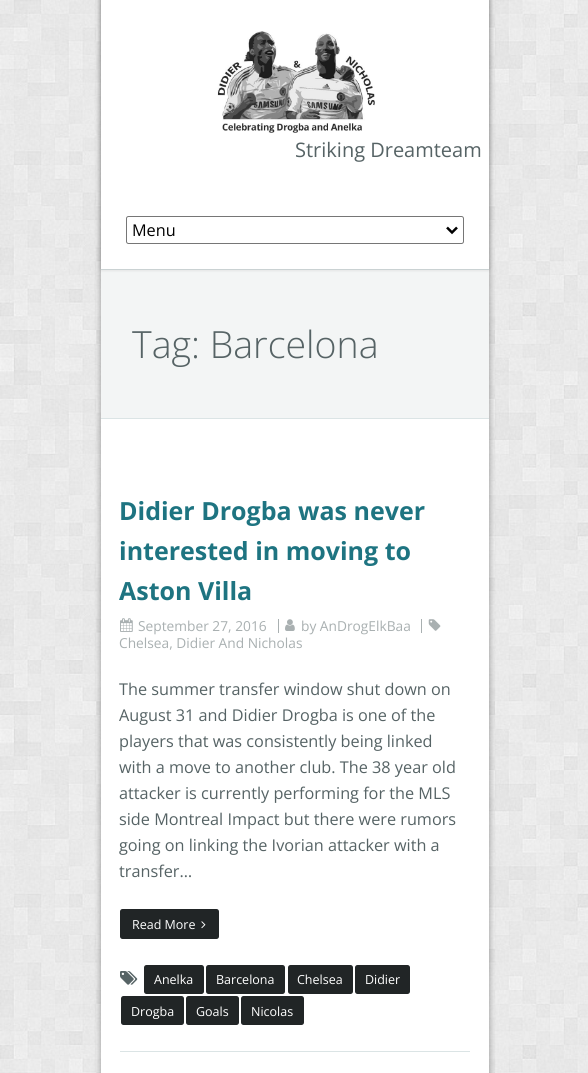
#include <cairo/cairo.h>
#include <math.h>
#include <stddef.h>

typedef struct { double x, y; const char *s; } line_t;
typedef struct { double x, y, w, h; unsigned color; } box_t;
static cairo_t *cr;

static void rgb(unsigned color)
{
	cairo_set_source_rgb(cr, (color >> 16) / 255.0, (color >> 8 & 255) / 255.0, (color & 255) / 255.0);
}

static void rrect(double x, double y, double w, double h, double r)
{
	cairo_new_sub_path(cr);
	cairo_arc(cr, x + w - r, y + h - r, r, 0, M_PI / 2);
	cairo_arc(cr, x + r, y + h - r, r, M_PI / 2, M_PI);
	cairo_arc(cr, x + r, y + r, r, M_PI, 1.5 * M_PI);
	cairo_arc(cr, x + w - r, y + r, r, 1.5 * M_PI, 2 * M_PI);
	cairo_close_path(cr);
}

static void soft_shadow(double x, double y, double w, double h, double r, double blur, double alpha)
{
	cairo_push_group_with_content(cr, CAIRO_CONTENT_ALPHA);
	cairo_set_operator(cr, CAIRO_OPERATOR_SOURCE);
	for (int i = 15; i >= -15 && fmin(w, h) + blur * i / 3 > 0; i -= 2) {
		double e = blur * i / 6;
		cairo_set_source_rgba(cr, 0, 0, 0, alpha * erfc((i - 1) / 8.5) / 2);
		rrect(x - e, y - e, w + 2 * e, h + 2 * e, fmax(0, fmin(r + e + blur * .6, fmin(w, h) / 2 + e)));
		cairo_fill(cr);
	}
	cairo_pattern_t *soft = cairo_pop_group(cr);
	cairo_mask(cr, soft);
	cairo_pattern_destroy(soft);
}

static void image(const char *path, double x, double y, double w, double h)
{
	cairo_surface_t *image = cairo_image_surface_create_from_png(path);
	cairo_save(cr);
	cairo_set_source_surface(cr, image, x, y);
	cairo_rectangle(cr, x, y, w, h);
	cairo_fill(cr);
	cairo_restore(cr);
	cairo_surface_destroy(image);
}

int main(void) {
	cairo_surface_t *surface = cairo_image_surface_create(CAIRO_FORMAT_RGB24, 588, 1073);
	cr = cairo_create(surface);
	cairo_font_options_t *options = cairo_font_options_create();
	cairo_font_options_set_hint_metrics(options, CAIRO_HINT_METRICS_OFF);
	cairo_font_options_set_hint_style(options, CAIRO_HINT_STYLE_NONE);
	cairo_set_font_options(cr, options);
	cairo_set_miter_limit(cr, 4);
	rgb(0xffffff);
	cairo_paint(cr);
	image("img/1.png", 0, 0, 588, 1073);
	rgb(0x000000);
	soft_shadow(100, -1, 390, 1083, 0, 3, 0.3);
	{
		static const box_t items[] = {
			{101, 0, 388, 1073, 0xffffff},
			{101, 270, 388, 148, 0xf3f5f5},
			{101, 269, 388, 1, 0xdbe4e5},
		};
		for (size_t i = 0; i < sizeof items / sizeof *items; i++) {
			rgb(items[i].color);
			cairo_rectangle(cr, items[i].x, items[i].y, items[i].w, items[i].h);
			cairo_fill(cr);
		}
	}
	cairo_save(cr);
	cairo_set_fill_rule(cr, CAIRO_FILL_RULE_EVEN_ODD);
	cairo_new_path(cr);
	cairo_move_to(cr, 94, 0);
	cairo_line_to(cr, 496, 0);
	cairo_line_to(cr, 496, 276);
	cairo_line_to(cr, 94, 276);
	cairo_close_path(cr);
	cairo_move_to(cr, 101, 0);
	cairo_line_to(cr, 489, 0);
	cairo_line_to(cr, 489, 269);
	cairo_line_to(cr, 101, 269);
	cairo_close_path(cr);
	cairo_clip(cr);
	rgb(0x000000);
	soft_shadow(101, 0, 388, 269, 0, 2, 0.2);
	cairo_restore(cr);
	cairo_set_source_rgba(cr, 1, 1, 1, 0.95);
	cairo_rectangle(cr, 101, 0, 388, 269);
	cairo_fill(cr);
	image("img/2.png", 217, 31, 158, 102);
	rrect(126.5, 216.5, 337, 27, 2);
	rgb(0x767676);
	cairo_set_line_width(cr, 1);
	cairo_stroke(cr);
	cairo_new_path(cr);
	cairo_move_to(cr, 447, 227.5);
	cairo_line_to(cr, 452, 232.5);
	cairo_line_to(cr, 457, 227.5);
	rgb(0x000000);
	cairo_set_line_width(cr, 2.5);
	cairo_stroke(cr);
	rgb(0xdbe4e5);
	cairo_rectangle(cr, 101, 418, 388, 1);
	cairo_fill(cr);
	image("img/3.png", 120, 618, 13, 14);
	rgb(0xa9b0b1);
	cairo_rectangle(cr, 278, 619, 1, 14);
	cairo_fill(cr);
	image("img/4.png", 285, 619, 10, 12);
	cairo_rectangle(cr, 421, 619, 1, 14);
	cairo_fill(cr);
	image("img/5.png", 428, 619, 13, 12);
	rgb(0x212526);
	rrect(120, 909, 99, 30, 2.5);
	cairo_fill(cr);
	image("img/6.png", 201, 921, 5, 8);
	image("img/7.png", 120, 971, 18, 14);
	rrect(144, 965, 60, 29, 2.5);
	cairo_fill(cr);
	rrect(206, 965, 79, 29, 2.5);
	cairo_fill(cr);
	rrect(288, 965, 65, 29, 2.5);
	cairo_fill(cr);
	rrect(355, 965, 55, 29, 2.5);
	cairo_fill(cr);
	rrect(121, 996, 63, 29, 2.5);
	cairo_fill(cr);
	rrect(186, 996, 53, 29, 2.5);
	cairo_fill(cr);
	rrect(241, 996, 63, 29, 2.5);
	cairo_fill(cr);
	rgb(0xdbe4e5);
	cairo_rectangle(cr, 120, 1051, 350, 1);
	cairo_fill(cr);
	cairo_select_font_face(cr, "Open Sans", CAIRO_FONT_SLANT_NORMAL, CAIRO_FONT_WEIGHT_NORMAL);
	cairo_set_font_size(cr, 20);
	rgb(0x566365);
	cairo_move_to(cr, 295, 157);
	cairo_show_text(cr, "Striking Dreamteam");
	cairo_set_font_size(cr, 16.25);
	rgb(0x000000);
	cairo_move_to(cr, 132, 236);
	cairo_show_text(cr, "Menu");
	cairo_select_font_face(cr, "Open Sans Light", CAIRO_FONT_SLANT_NORMAL, CAIRO_FONT_WEIGHT_NORMAL);
	cairo_set_font_size(cr, 37.5);
	rgb(0x566365);
	cairo_move_to(cr, 132, 358);
	cairo_show_text(cr, "Tag: Barcelona");
	cairo_select_font_face(cr, "Open Sans", CAIRO_FONT_SLANT_NORMAL, CAIRO_FONT_WEIGHT_BOLD);
	cairo_set_font_size(cr, 25);
	rgb(0x1e7481);
	{
		static const line_t items[] = {
			{119, 520, "Didier Drogba was never"},
			{119, 560, "interested in moving to"},
			{119, 600, "Aston Villa"},
		};
		for (size_t i = 0; i < sizeof items / sizeof *items; i++) {
			cairo_move_to(cr, items[i].x, items[i].y);
			cairo_show_text(cr, items[i].s);
		}
	}
	cairo_select_font_face(cr, "Open Sans", CAIRO_FONT_SLANT_NORMAL, CAIRO_FONT_WEIGHT_NORMAL);
	cairo_set_font_size(cr, 13.75);
	rgb(0xa9b0b1);
	{
		static const line_t items[] = {
			{138, 631, "September 27, 2016"},
			{301, 631, "by AnDrogElkBaa"},
			{119, 648, "Chelsea, Didier And Nicholas"},
		};
		for (size_t i = 0; i < sizeof items / sizeof *items; i++) {
			cairo_move_to(cr, items[i].x, items[i].y);
			cairo_show_text(cr, items[i].s);
		}
	}
	cairo_set_font_size(cr, 16.25);
	rgb(0x566365);
	{
		static const line_t items[] = {
			{119, 695, "The summer transfer window shut down on"},
			{119, 721, "August 31 and Didier Drogba is one of the"},
			{119, 747, "players that was consistently being linked"},
			{119, 773, "with a move to another club. The 38 year old"},
			{119, 799, "attacker is currently performing for the MLS"},
			{119, 825, "side Montreal Impact but there were rumors"},
			{119, 851, "going on linking the Ivorian attacker with a"},
			{119, 877, "transfer…"},
		};
		for (size_t i = 0; i < sizeof items / sizeof *items; i++) {
			cairo_move_to(cr, items[i].x, items[i].y);
			cairo_show_text(cr, items[i].s);
		}
	}
	cairo_set_font_size(cr, 12.5);
	rgb(0xffffff);
	{
		static const line_t items[] = {
			{132, 929, "Read More"},
			{154, 984, "Anelka"},
			{216, 984, "Barcelona"},
			{297, 984, "Chelsea"},
			{365, 984, "Didier"},
			{131, 1016, "Drogba"},
			{196, 1016, "Goals"},
			{251, 1016, "Nicolas"},
		};
		for (size_t i = 0; i < sizeof items / sizeof *items; i++) {
			cairo_move_to(cr, items[i].x, items[i].y);
			cairo_show_text(cr, items[i].s);
		}
	}
	cairo_surface_write_to_png(surface, "page.png");
	cairo_font_options_destroy(options);
	cairo_destroy(cr);
	cairo_surface_destroy(surface);
	return 0;
}
